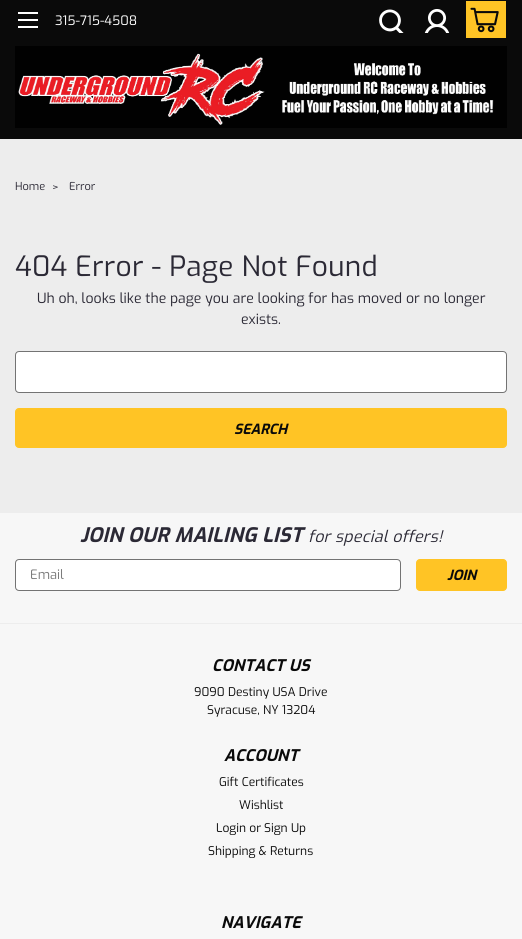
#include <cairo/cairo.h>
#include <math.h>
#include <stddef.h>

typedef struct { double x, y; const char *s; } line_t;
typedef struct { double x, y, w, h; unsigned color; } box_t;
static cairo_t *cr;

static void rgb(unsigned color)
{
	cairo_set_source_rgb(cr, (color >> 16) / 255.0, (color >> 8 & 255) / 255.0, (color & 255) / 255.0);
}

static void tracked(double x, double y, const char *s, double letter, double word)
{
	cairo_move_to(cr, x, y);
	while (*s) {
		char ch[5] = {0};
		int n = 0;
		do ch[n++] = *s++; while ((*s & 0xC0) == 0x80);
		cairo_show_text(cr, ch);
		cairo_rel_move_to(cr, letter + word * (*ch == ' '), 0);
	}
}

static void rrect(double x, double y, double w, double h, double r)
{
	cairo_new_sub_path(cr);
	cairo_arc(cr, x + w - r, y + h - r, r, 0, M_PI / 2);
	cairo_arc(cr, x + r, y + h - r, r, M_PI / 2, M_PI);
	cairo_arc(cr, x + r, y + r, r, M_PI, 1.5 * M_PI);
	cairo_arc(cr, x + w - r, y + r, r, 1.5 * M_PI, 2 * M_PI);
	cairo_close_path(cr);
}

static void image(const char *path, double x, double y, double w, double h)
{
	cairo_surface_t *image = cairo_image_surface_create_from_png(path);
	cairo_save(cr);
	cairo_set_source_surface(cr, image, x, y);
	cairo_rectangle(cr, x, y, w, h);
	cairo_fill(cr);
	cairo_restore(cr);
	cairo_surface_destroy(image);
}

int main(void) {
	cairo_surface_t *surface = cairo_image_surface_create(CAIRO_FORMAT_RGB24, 522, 939);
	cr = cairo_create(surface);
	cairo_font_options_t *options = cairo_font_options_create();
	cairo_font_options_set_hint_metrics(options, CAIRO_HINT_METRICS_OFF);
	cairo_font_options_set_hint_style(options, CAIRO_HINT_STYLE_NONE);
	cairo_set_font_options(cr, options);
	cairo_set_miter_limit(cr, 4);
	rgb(0xededed);
	cairo_paint(cr);
	rgb(0x0a0a0a);
	cairo_rectangle(cr, 0, 0, 522, 139);
	cairo_fill(cr);
	image("img/1.png", 15, 46, 492, 82);
	{
		static const box_t items[] = {
			{18, 19, 20, 2, 0xffffff},
			{18, 12, 20, 2, 0xffffff},
			{18, 26, 20, 2, 0xffffff},
		};
		for (size_t i = 0; i < sizeof items / sizeof *items; i++) {
			rgb(items[i].color);
			cairo_rectangle(cr, items[i].x, items[i].y, items[i].w, items[i].h);
			cairo_fill(cr);
		}
	}
	image("img/2.png", 379, 9, 25, 24);
	image("img/3.png", 424, 9, 26, 24);
	rgb(0xffc425);
	cairo_rectangle(cr, 466, 1, 40, 37);
	cairo_fill(cr);
	image("img/4.png", 470, 7, 29, 26);
	rgb(0xffffff);
	rrect(15.5, 351.5, 491, 41, 3.5);
	cairo_fill_preserve(cr);
	rgb(0x737373);
	cairo_set_line_width(cr, 1);
	cairo_stroke(cr);
	rgb(0xffc425);
	rrect(15.5, 408.5, 491, 39, 3.5);
	cairo_fill_preserve(cr);
	cairo_stroke(cr);
	rgb(0xf7f7f7);
	cairo_rectangle(cr, 0, 513, 522, 110);
	cairo_fill(cr);
	rgb(0xffffff);
	rrect(15.5, 559.5, 385, 31, 3.5);
	cairo_fill_preserve(cr);
	rgb(0x737373);
	cairo_stroke(cr);
	rgb(0xffc425);
	rrect(416.5, 559.5, 90, 31, 3.5);
	cairo_fill_preserve(cr);
	cairo_stroke(cr);
	rgb(0xf7f7f7);
	cairo_rectangle(cr, 0, 624, 522, 315);
	cairo_fill(cr);
	cairo_select_font_face(cr, "Exo", CAIRO_FONT_SLANT_NORMAL, CAIRO_FONT_WEIGHT_NORMAL);
	cairo_set_font_size(cr, 13);
	rgb(0xffffff);
	cairo_move_to(cr, 55, 25);
	cairo_show_text(cr, "315-715-4508");
	cairo_set_font_size(cr, 11);
	rgb(0x2b2935);
	{
		static const line_t items[] = {
			{15, 190, "Home"},
			{52, 191, ">"},
			{69, 190, "Error"},
		};
		for (size_t i = 0; i < sizeof items / sizeof *items; i++) {
			cairo_move_to(cr, items[i].x, items[i].y);
			cairo_show_text(cr, items[i].s);
		}
	}
	cairo_set_font_size(cr, 28);
	tracked(15, 276, "404 Error - Page Not Found", 0.25, 0);
	cairo_set_font_size(cr, 14);
	cairo_move_to(cr, 37, 303);
	cairo_show_text(cr, "Uh oh, looks like the page you are looking for has moved or no longer");
	cairo_move_to(cr, 241, 324);
	cairo_show_text(cr, "exists.");
	cairo_select_font_face(cr, "Exo", CAIRO_FONT_SLANT_ITALIC, CAIRO_FONT_WEIGHT_BOLD);
	rgb(0x0a0a0a);
	cairo_move_to(cr, 234, 434);
	cairo_show_text(cr, "SEARCH");
	cairo_set_font_size(cr, 20);
	rgb(0x2b2935);
	tracked(80, 542, "JOIN OUR MAILING LIST", 0.25, 0);
	cairo_select_font_face(cr, "Exo", CAIRO_FONT_SLANT_ITALIC, CAIRO_FONT_WEIGHT_NORMAL);
	cairo_set_font_size(cr, 16);
	tracked(308, 542, "for special offers!", 0.25, 0);
	cairo_select_font_face(cr, "Exo", CAIRO_FONT_SLANT_NORMAL, CAIRO_FONT_WEIGHT_NORMAL);
	cairo_set_font_size(cr, 13);
	rgb(0x7b7b7b);
	cairo_move_to(cr, 30, 579);
	cairo_show_text(cr, "Email");
	cairo_select_font_face(cr, "Exo", CAIRO_FONT_SLANT_ITALIC, CAIRO_FONT_WEIGHT_BOLD);
	cairo_set_font_size(cr, 14);
	rgb(0x0a0a0a);
	cairo_move_to(cr, 447, 580);
	cairo_show_text(cr, "JOIN");
	cairo_set_font_size(cr, 16);
	tracked(212, 671, "CONTACT US", 0.25, 0);
	cairo_select_font_face(cr, "Exo", CAIRO_FONT_SLANT_NORMAL, CAIRO_FONT_WEIGHT_NORMAL);
	cairo_set_font_size(cr, 12);
	cairo_move_to(cr, 194, 696);
	cairo_show_text(cr, "9090 Destiny USA Drive");
	cairo_move_to(cr, 207, 714);
	cairo_show_text(cr, "Syracuse, NY 13204");
	cairo_select_font_face(cr, "Exo", CAIRO_FONT_SLANT_ITALIC, CAIRO_FONT_WEIGHT_BOLD);
	cairo_set_font_size(cr, 16);
	tracked(224, 761, "ACCOUNT", 0.25, 0);
	cairo_select_font_face(cr, "Exo", CAIRO_FONT_SLANT_NORMAL, CAIRO_FONT_WEIGHT_NORMAL);
	cairo_set_font_size(cr, 12);
	{
		static const line_t items[] = {
			{219, 786, "Gift Certificates"},
			{239, 809, "Wishlist"},
			{216, 832, "Login or"},
			{264, 832, "Sign Up"},
			{208, 855, "Shipping & Returns"},
		};
		for (size_t i = 0; i < sizeof items / sizeof *items; i++) {
			cairo_move_to(cr, items[i].x, items[i].y);
			cairo_show_text(cr, items[i].s);
		}
	}
	cairo_select_font_face(cr, "Exo", CAIRO_FONT_SLANT_ITALIC, CAIRO_FONT_WEIGHT_BOLD);
	cairo_set_font_size(cr, 16);
	tracked(221, 928, "NAVIGATE", 0.25, 0);
	cairo_surface_write_to_png(surface, "page.png");
	cairo_font_options_destroy(options);
	cairo_destroy(cr);
	cairo_surface_destroy(surface);
	return 0;
}
